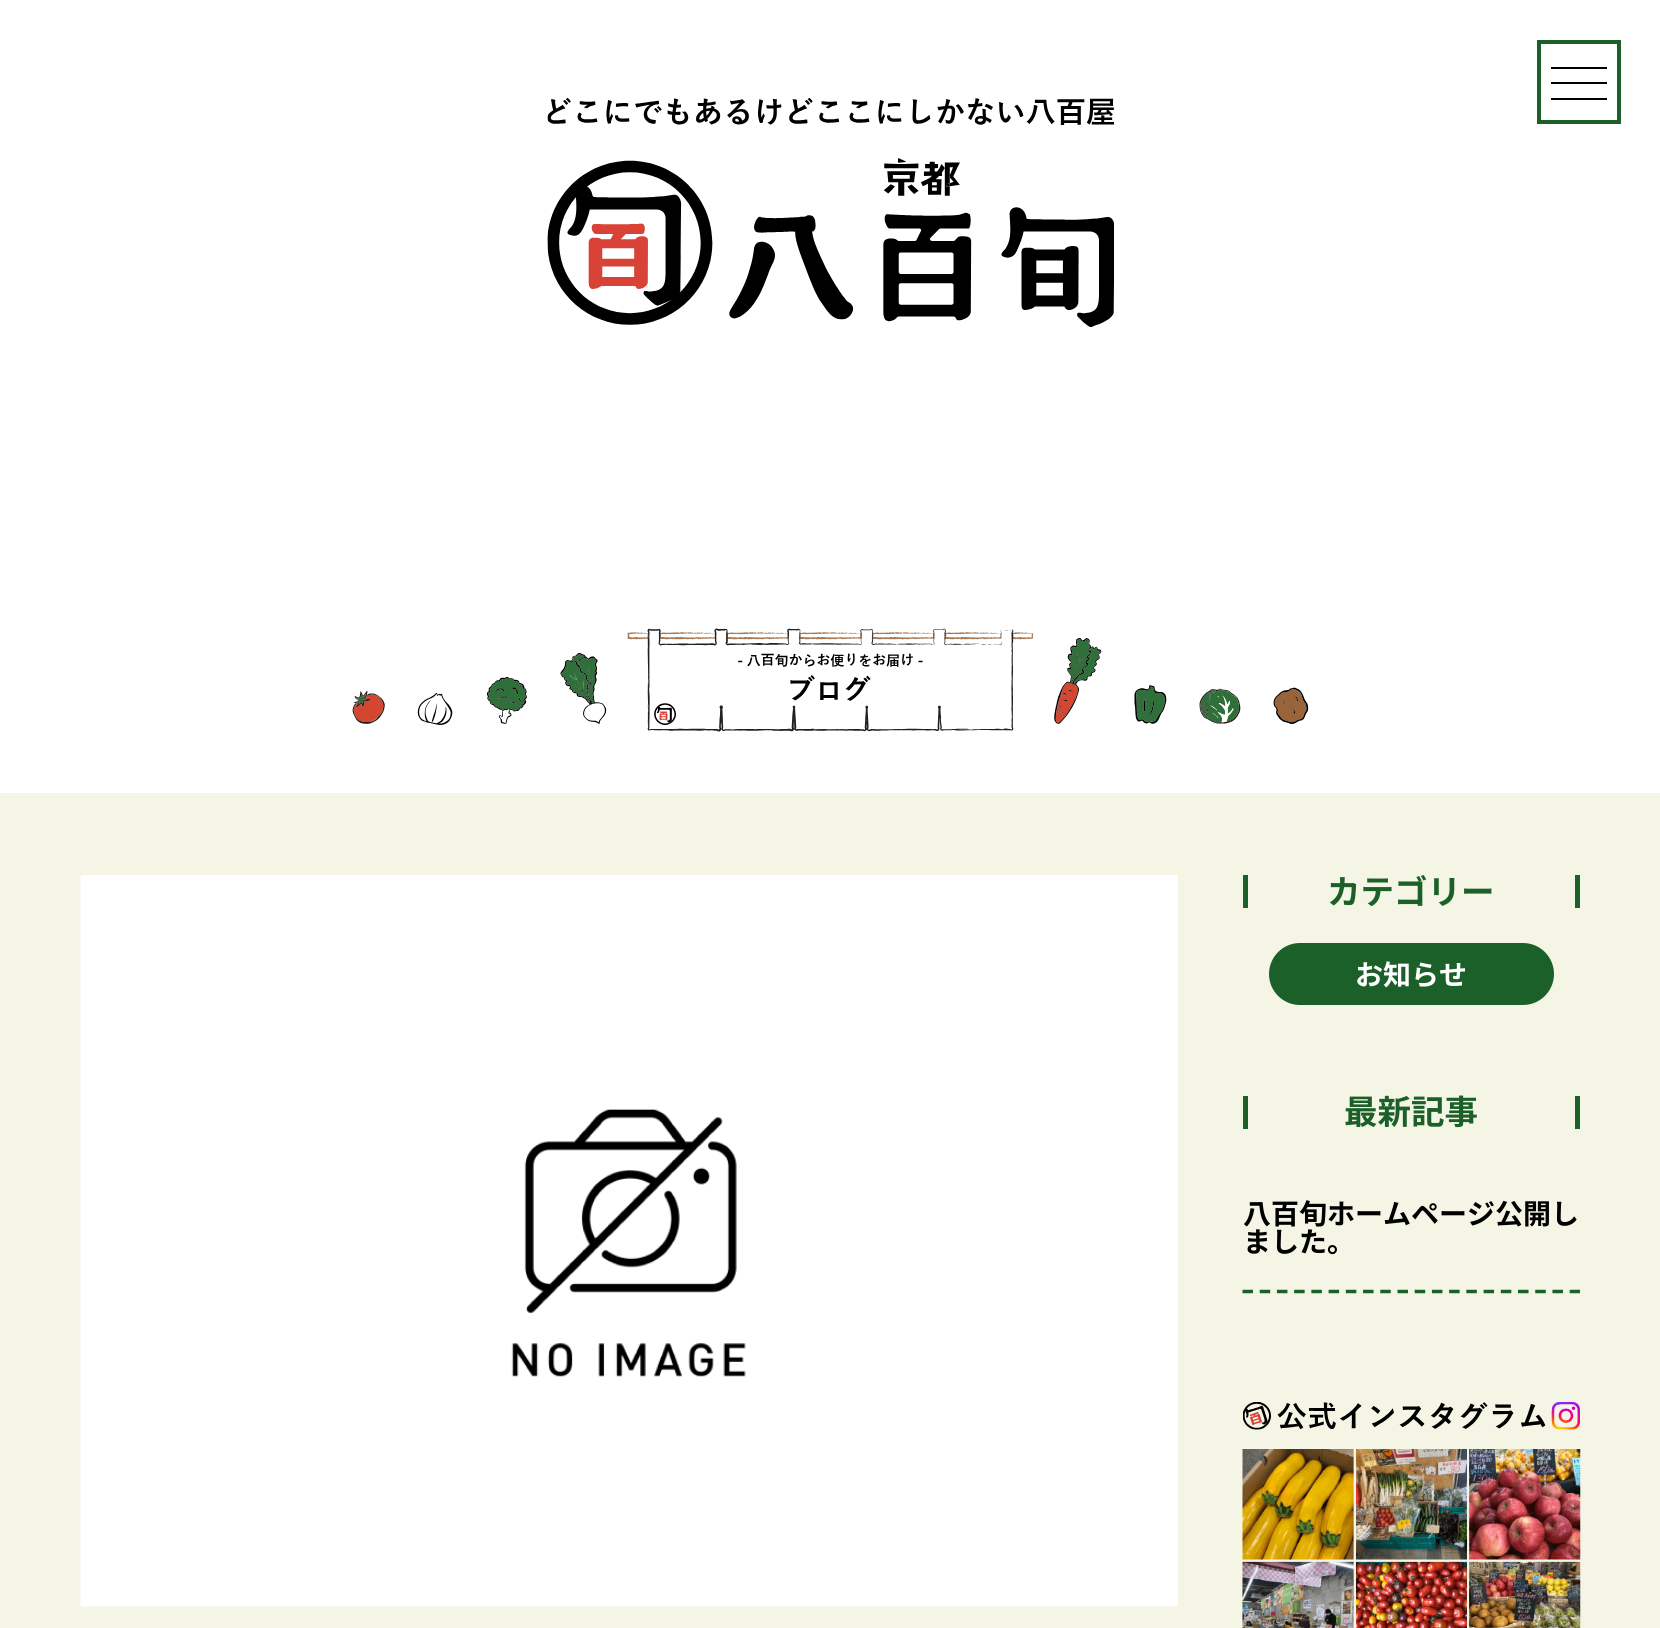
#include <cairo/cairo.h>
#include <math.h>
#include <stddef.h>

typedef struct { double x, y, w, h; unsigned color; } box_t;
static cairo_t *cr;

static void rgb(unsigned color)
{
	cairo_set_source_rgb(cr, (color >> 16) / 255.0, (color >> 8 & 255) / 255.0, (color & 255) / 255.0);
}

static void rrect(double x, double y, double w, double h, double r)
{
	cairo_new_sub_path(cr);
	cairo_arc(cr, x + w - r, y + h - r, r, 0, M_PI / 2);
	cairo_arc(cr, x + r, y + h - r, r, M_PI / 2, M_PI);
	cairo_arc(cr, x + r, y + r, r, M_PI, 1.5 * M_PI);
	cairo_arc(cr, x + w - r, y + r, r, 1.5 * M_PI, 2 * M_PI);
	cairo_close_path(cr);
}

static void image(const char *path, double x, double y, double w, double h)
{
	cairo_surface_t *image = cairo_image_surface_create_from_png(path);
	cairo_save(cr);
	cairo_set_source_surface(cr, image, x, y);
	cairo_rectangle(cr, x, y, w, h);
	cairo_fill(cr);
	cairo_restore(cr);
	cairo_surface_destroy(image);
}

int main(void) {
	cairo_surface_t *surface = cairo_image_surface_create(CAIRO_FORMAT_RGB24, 1660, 1628);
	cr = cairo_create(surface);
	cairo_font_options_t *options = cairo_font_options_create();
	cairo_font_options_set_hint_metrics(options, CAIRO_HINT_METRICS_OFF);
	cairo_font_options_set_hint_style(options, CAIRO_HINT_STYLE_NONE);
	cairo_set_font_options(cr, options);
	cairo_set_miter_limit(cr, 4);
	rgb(0xffffff);
	cairo_paint(cr);
	cairo_rectangle(cr, 1539, 42, 80, 80);
	rgb(0x1a6028);
	cairo_set_line_width(cr, 4);
	cairo_stroke(cr);
	{
		static const box_t items[] = {
			{1551, 67, 56, 2, 0x000000},
			{1551, 82, 56, 2, 0x000000},
			{1551, 98, 56, 2, 0x000000},
		};
		for (size_t i = 0; i < sizeof items / sizeof *items; i++) {
			rgb(items[i].color);
			cairo_rectangle(cr, items[i].x, items[i].y, items[i].w, items[i].h);
			cairo_fill(cr);
		}
	}
	image("img/1.png", 547, 98, 567, 229);
	image("img/2.png", 352, 628, 957, 104);
	rgb(0xf5f5e6);
	cairo_rectangle(cr, 0, 793, 1660, 835);
	cairo_fill(cr);
	image("img/3.png", 80, 875, 1098, 732);
	rgb(0x1a6028);
	cairo_rectangle(cr, 1575, 875, 5, 33);
	cairo_fill(cr);
	cairo_rectangle(cr, 1243, 875, 5, 33);
	cairo_fill(cr);
	rrect(1269, 943, 285, 62, 31);
	cairo_fill(cr);
	cairo_rectangle(cr, 1575, 1096, 5, 33);
	cairo_fill(cr);
	cairo_rectangle(cr, 1243, 1096, 5, 33);
	cairo_fill(cr);
	cairo_new_path(cr);
	cairo_move_to(cr, 1242.5, 1291.5);
	cairo_line_to(cr, 1580, 1291.5);
	cairo_set_line_width(cr, 3.5);
	cairo_set_dash(cr, (double[]){10.5, 6.72}, 2, 0);
	cairo_stroke(cr);
	image("img/4.png", 1243, 1402, 337, 28);
	image("img/5.png", 1242, 1449, 339, 179);
	cairo_select_font_face(cr, "Noto Sans JP", CAIRO_FONT_SLANT_NORMAL, CAIRO_FONT_WEIGHT_BOLD);
	cairo_set_font_size(cr, 33.5);
	cairo_move_to(cr, 1327, 904);
	cairo_show_text(cr, "カテゴリー");
	cairo_set_font_size(cr, 28);
	rgb(0xffffff);
	cairo_move_to(cr, 1355, 985);
	cairo_show_text(cr, "お知らせ");
	cairo_set_font_size(cr, 33.5);
	rgb(0x1a6028);
	cairo_move_to(cr, 1344, 1124);
	cairo_show_text(cr, "最新記事");
	cairo_set_font_size(cr, 28);
	rgb(0x000000);
	cairo_move_to(cr, 1243, 1224);
	cairo_show_text(cr, "八百旬ホームページ公開し");
	cairo_move_to(cr, 1243, 1252);
	cairo_show_text(cr, "ました。");
	cairo_surface_write_to_png(surface, "page.png");
	cairo_font_options_destroy(options);
	cairo_destroy(cr);
	cairo_surface_destroy(surface);
	return 0;
}
